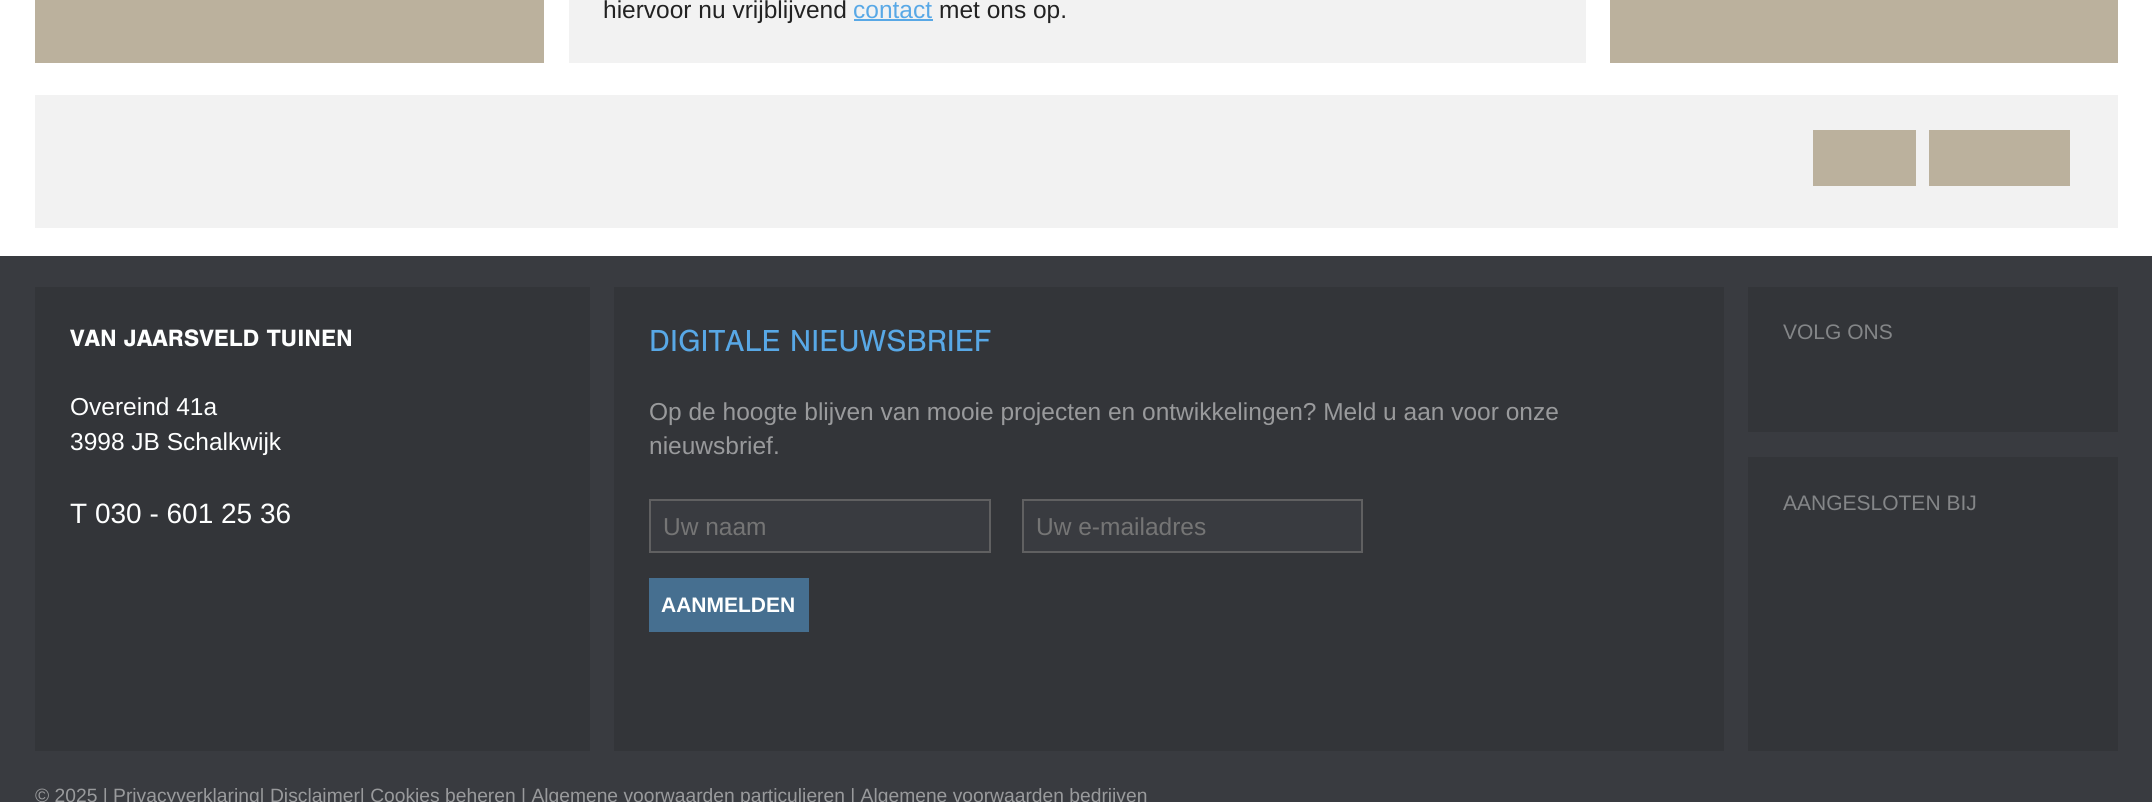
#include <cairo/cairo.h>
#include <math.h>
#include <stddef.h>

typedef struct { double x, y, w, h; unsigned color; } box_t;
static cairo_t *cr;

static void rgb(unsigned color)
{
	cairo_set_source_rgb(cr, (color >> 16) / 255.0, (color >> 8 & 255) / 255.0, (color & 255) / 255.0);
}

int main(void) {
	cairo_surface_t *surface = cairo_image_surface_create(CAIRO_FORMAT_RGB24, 2152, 802);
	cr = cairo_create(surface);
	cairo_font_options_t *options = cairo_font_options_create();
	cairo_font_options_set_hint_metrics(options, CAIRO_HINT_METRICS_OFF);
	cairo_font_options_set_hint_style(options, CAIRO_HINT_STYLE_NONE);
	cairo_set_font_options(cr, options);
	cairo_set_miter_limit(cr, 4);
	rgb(0x393b40);
	cairo_paint(cr);
	{
		static const box_t items[] = {
			{0, 0, 2152, 256, 0xffffff},
			{35, 0, 509, 63, 0xbbb19d},
			{569, 0, 1017, 63, 0xf2f2f2},
			{854, 19, 79, 2, 0x58a8e6},
			{1610, 0, 508, 63, 0xbbb19d},
			{35, 95, 2083, 133, 0xf2f2f2},
			{1813, 130, 103, 56, 0xbbb19d},
			{1929, 130, 141, 56, 0xbbb19d},
			{35, 287, 555, 464, 0x333539},
			{614, 287, 1110, 464, 0x333539},
		};
		for (size_t i = 0; i < sizeof items / sizeof *items; i++) {
			rgb(items[i].color);
			cairo_rectangle(cr, items[i].x, items[i].y, items[i].w, items[i].h);
			cairo_fill(cr);
		}
	}
	rgb(0x393b40);
	cairo_rectangle(cr, 650, 500, 340, 52);
	cairo_fill_preserve(cr);
	rgb(0x606061);
	cairo_stroke(cr);
	rgb(0x393b40);
	cairo_rectangle(cr, 1023, 500, 339, 52);
	cairo_fill_preserve(cr);
	rgb(0x606061);
	cairo_stroke(cr);
	{
		static const box_t items[] = {
			{649, 578, 160, 54, 0x466f90},
			{1748, 287, 370, 464, 0x333539},
			{1748, 432, 370, 25, 0x393b40},
		};
		for (size_t i = 0; i < sizeof items / sizeof *items; i++) {
			rgb(items[i].color);
			cairo_rectangle(cr, items[i].x, items[i].y, items[i].w, items[i].h);
			cairo_fill(cr);
		}
	}
	cairo_select_font_face(cr, "Liberation Sans", CAIRO_FONT_SLANT_NORMAL, CAIRO_FONT_WEIGHT_NORMAL);
	cairo_set_font_size(cr, 24.5);
	rgb(0x222222);
	cairo_move_to(cr, 603, 18);
	cairo_show_text(cr, "hiervoor nu vrijblijvend");
	rgb(0x58a8e6);
	cairo_move_to(cr, 853, 18);
	cairo_show_text(cr, "contact");
	rgb(0x222222);
	cairo_move_to(cr, 939, 18);
	cairo_show_text(cr, "met ons op.");
	cairo_select_font_face(cr, "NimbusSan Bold", CAIRO_FONT_SLANT_NORMAL, CAIRO_FONT_WEIGHT_BOLD);
	rgb(0xfeffff);
	cairo_move_to(cr, 70, 346);
	cairo_show_text(cr, "VAN JAARSVELD TUINEN");
	cairo_select_font_face(cr, "Liberation Sans", CAIRO_FONT_SLANT_NORMAL, CAIRO_FONT_WEIGHT_NORMAL);
	cairo_move_to(cr, 70, 415);
	cairo_show_text(cr, "Overeind 41a");
	cairo_move_to(cr, 70, 450);
	cairo_show_text(cr, "3998 JB Schalkwijk");
	cairo_set_font_size(cr, 28);
	cairo_move_to(cr, 70, 523);
	cairo_show_text(cr, "T 030 - 601 25 36");
	cairo_select_font_face(cr, "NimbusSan", CAIRO_FONT_SLANT_NORMAL, CAIRO_FONT_WEIGHT_NORMAL);
	cairo_set_font_size(cr, 31.5);
	rgb(0x58a8e6);
	cairo_move_to(cr, 649, 351);
	cairo_show_text(cr, "DIGITALE NIEUWSBRIEF");
	cairo_select_font_face(cr, "Liberation Sans", CAIRO_FONT_SLANT_NORMAL, CAIRO_FONT_WEIGHT_NORMAL);
	cairo_set_font_size(cr, 24.5);
	rgb(0x999a9c);
	cairo_move_to(cr, 649, 420);
	cairo_show_text(cr, "Op de hoogte blijven van mooie projecten en ontwikkelingen? Meld u aan voor onze");
	cairo_move_to(cr, 649, 454);
	cairo_show_text(cr, "nieuwsbrief.");
	rgb(0x757575);
	cairo_move_to(cr, 663, 535);
	cairo_show_text(cr, "Uw naam");
	cairo_move_to(cr, 1036, 535);
	cairo_show_text(cr, "Uw e-mailadres");
	cairo_select_font_face(cr, "Liberation Sans", CAIRO_FONT_SLANT_NORMAL, CAIRO_FONT_WEIGHT_BOLD);
	cairo_set_font_size(cr, 21);
	rgb(0xfeffff);
	cairo_move_to(cr, 661, 612);
	cairo_show_text(cr, "AANMELDEN");
	cairo_select_font_face(cr, "Liberation Sans", CAIRO_FONT_SLANT_NORMAL, CAIRO_FONT_WEIGHT_NORMAL);
	rgb(0x848688);
	cairo_move_to(cr, 1783, 339);
	cairo_show_text(cr, "VOLG ONS");
	cairo_move_to(cr, 1783, 510);
	cairo_show_text(cr, "AANGESLOTEN BIJ");
	cairo_set_font_size(cr, 19.25);
	rgb(0x999a9c);
	cairo_move_to(cr, 35, 802);
	cairo_show_text(cr, "© 2025 | Privacyverklaring| Disclaimer| Cookies beheren | Algemene voorwaarden particulieren | Algemene voorwaarden bedrijven");
	cairo_surface_write_to_png(surface, "page.png");
	cairo_font_options_destroy(options);
	cairo_destroy(cr);
	cairo_surface_destroy(surface);
	return 0;
}
